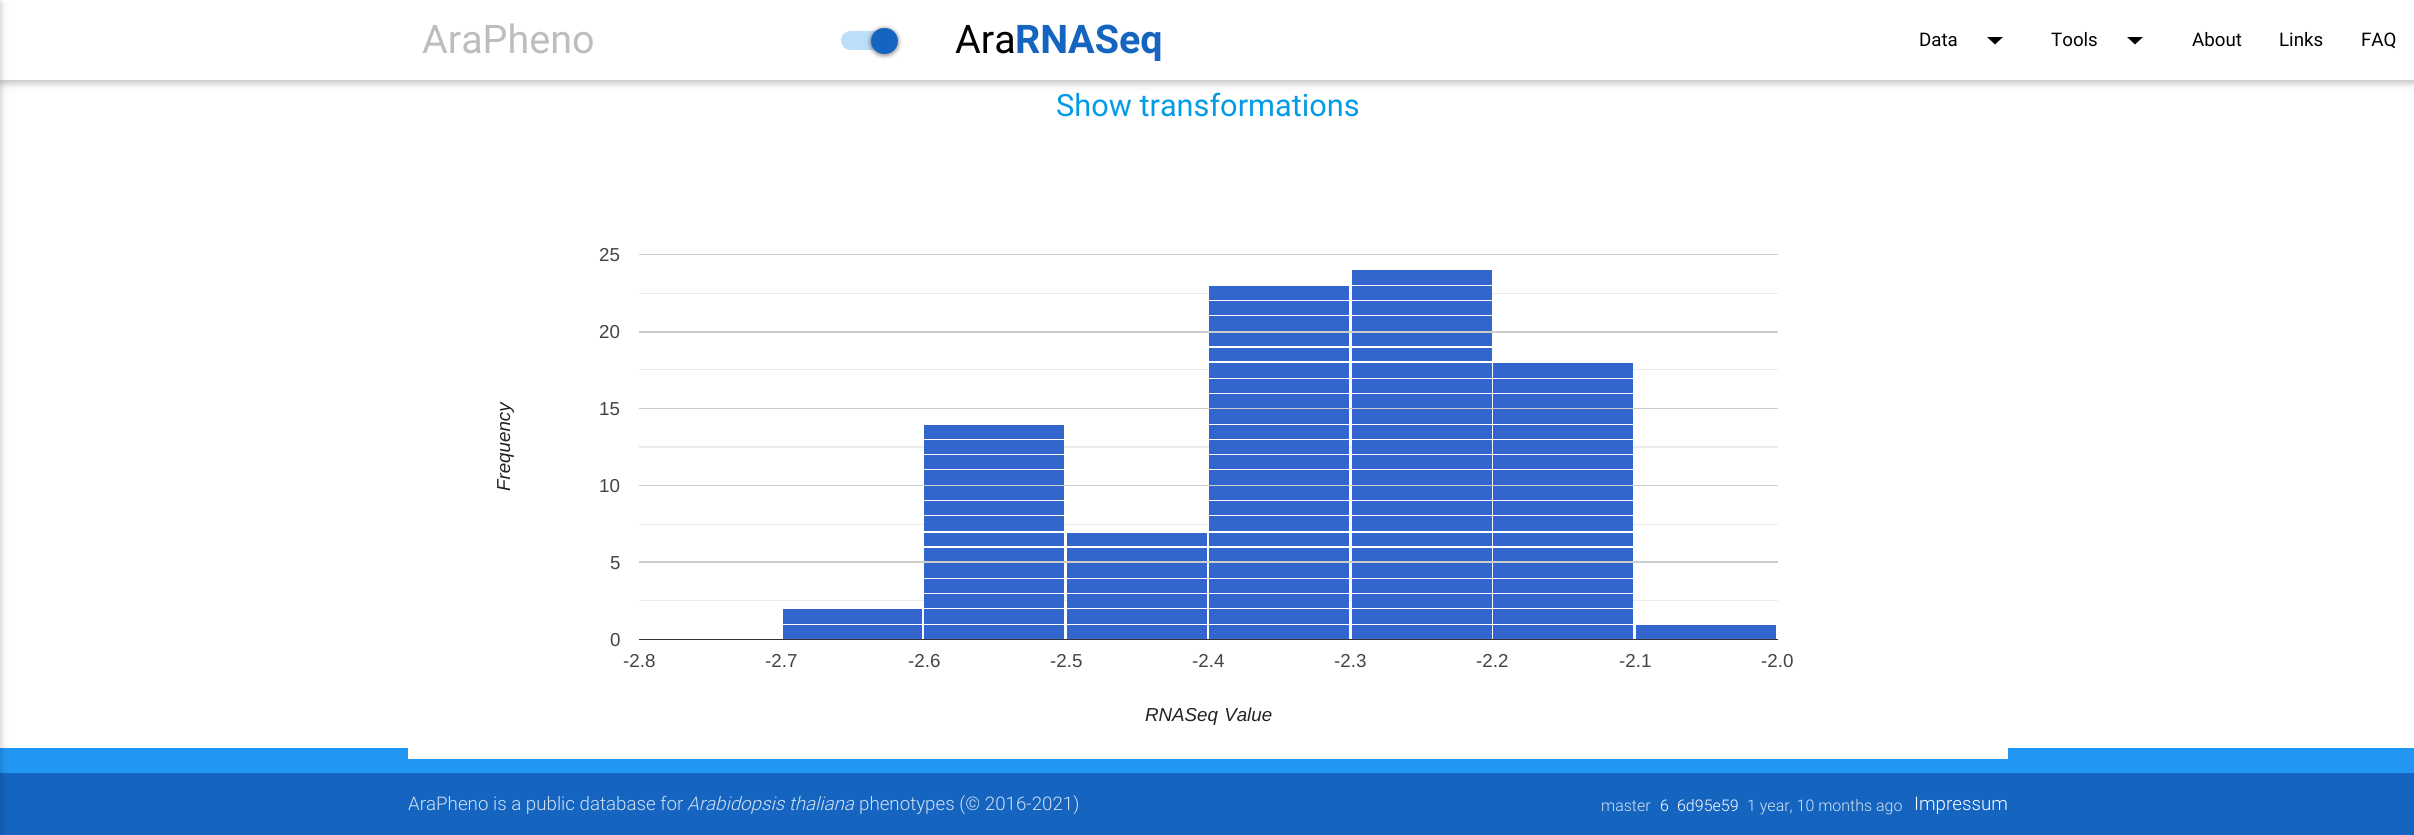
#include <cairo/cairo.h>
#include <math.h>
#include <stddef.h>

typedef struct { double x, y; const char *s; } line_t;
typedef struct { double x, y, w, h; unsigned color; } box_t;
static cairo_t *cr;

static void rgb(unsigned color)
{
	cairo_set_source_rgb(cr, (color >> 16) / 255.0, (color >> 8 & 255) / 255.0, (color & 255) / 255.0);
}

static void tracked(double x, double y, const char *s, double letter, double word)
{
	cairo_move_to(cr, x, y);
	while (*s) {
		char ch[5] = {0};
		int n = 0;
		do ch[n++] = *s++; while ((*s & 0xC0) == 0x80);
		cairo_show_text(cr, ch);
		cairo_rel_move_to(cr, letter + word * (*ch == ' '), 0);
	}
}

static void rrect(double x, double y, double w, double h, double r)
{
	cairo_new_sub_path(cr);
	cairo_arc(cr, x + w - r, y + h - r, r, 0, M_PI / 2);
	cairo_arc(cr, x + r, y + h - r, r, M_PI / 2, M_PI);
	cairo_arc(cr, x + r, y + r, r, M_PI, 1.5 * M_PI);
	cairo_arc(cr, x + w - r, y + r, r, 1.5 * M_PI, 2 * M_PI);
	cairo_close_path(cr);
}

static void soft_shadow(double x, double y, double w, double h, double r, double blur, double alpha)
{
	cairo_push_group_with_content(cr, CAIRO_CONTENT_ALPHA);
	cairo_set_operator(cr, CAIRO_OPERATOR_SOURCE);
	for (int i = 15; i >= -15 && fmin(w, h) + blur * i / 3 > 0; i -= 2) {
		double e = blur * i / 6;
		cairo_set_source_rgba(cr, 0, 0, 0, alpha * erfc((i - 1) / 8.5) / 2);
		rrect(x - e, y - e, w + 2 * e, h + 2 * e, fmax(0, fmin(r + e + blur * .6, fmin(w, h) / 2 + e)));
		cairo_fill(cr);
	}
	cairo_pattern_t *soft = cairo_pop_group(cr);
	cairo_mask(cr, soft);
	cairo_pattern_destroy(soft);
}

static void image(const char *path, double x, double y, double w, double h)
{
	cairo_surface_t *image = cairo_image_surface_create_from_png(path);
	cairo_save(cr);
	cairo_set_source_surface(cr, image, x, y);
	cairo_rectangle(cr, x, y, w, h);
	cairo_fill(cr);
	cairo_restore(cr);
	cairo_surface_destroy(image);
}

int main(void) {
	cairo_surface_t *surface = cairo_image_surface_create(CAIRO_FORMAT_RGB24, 2414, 835);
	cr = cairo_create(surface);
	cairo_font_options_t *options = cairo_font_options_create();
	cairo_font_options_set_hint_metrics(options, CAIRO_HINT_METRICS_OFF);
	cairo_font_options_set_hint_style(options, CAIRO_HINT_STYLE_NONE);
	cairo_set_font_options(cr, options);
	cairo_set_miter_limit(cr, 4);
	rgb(0xffffff);
	cairo_paint(cr);
	rgb(0x000000);
	soft_shadow(0, 3, 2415, 80, 0, 6, 0.12);
	soft_shadow(0, 3, 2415, 80, 0, 3, 0.16);
	{
		static const box_t items[] = {
			{0, 0, 2414, 80, 0xffffff},
			{0, 748, 2414, 25, 0x2196f3},
			{0, 773, 2414, 62, 0x1565c0},
		};
		for (size_t i = 0; i < sizeof items / sizeof *items; i++) {
			rgb(items[i].color);
			cairo_rectangle(cr, items[i].x, items[i].y, items[i].w, items[i].h);
			cairo_fill(cr);
		}
	}
	rgb(0x000000);
	soft_shadow(-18, 3, 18, 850, 0, 6, 0.12);
	soft_shadow(-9, 3, 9, 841, 0, 3, 0.16);
	rgb(0xbbdefb);
	rrect(841, 31, 50, 19, 9.5);
	cairo_fill(cr);
	rgb(0x000000);
	soft_shadow(870, 28, 29, 28, 14, 2, 0.4);
	rgb(0x1565c0);
	rrect(871, 28, 27, 26, 13);
	cairo_fill(cr);
	rgb(0x000000);
	cairo_new_path(cr);
	cairo_move_to(cr, 1987, 37);
	cairo_line_to(cr, 2003, 37);
	cairo_line_to(cr, 1995, 44.5);
	cairo_close_path(cr);
	cairo_fill(cr);
	cairo_new_path(cr);
	cairo_move_to(cr, 2127, 37);
	cairo_line_to(cr, 2143, 37);
	cairo_line_to(cr, 2135, 44.5);
	cairo_close_path(cr);
	cairo_fill(cr);
	image("img/1.png", 408, 254, 1600, 505);
	cairo_select_font_face(cr, "Roboto", CAIRO_FONT_SLANT_NORMAL, CAIRO_FONT_WEIGHT_NORMAL);
	cairo_set_font_size(cr, 39.5);
	rgb(0xbdbdbd);
	cairo_move_to(cr, 422, 53);
	cairo_show_text(cr, "AraPheno");
	rgb(0x000000);
	cairo_move_to(cr, 955, 53);
	cairo_show_text(cr, "Ara");
	cairo_select_font_face(cr, "Roboto", CAIRO_FONT_SLANT_NORMAL, CAIRO_FONT_WEIGHT_BOLD);
	rgb(0x1565c0);
	cairo_move_to(cr, 1015, 53);
	cairo_show_text(cr, "RNASeq");
	cairo_select_font_face(cr, "Roboto", CAIRO_FONT_SLANT_NORMAL, CAIRO_FONT_WEIGHT_NORMAL);
	cairo_set_font_size(cr, 18.75);
	rgb(0x000000);
	{
		static const line_t items[] = {
			{1919, 46, "Data"},
			{2051, 46, "Tools"},
			{2192, 46, "About"},
			{2279, 46, "Links"},
			{2361, 46, "FAQ"},
		};
		for (size_t i = 0; i < sizeof items / sizeof *items; i++) {
			cairo_move_to(cr, items[i].x, items[i].y);
			cairo_show_text(cr, items[i].s);
		}
	}
	cairo_set_font_size(cr, 30.75);
	rgb(0x039be5);
	cairo_move_to(cr, 1056, 116);
	cairo_show_text(cr, "Show transformations");
	cairo_select_font_face(cr, "Liberation Sans", CAIRO_FONT_SLANT_NORMAL, CAIRO_FONT_WEIGHT_NORMAL);
	cairo_set_font_size(cr, 18.75);
	rgb(0x444444);
	cairo_move_to(cr, 599, 261);
	cairo_show_text(cr, "25");
	cairo_move_to(cr, 599, 338);
	cairo_show_text(cr, "20");
	cairo_select_font_face(cr, "Liberation Sans", CAIRO_FONT_SLANT_ITALIC, CAIRO_FONT_WEIGHT_NORMAL);
	rgb(0x222222);
	cairo_save(cr);
	cairo_translate(cr, 510, 491);
	cairo_rotate(cr, -90 * M_PI / 180);
	cairo_move_to(cr, 0, 0);
	cairo_show_text(cr, "Frequency");
	cairo_restore(cr);
	cairo_select_font_face(cr, "Liberation Sans", CAIRO_FONT_SLANT_NORMAL, CAIRO_FONT_WEIGHT_NORMAL);
	rgb(0x444444);
	{
		static const line_t items[] = {
			{599, 415, "15"},
			{599, 492, "10"},
			{610, 569, "5"},
			{610, 646, "0"},
			{623, 667, "-2.8"},
			{765, 667, "-2.7"},
			{908, 667, "-2.6"},
			{1050, 667, "-2.5"},
			{1192, 667, "-2.4"},
			{1334, 667, "-2.3"},
			{1476, 667, "-2.2"},
			{1619, 667, "-2.1"},
			{1761, 667, "-2.0"},
		};
		for (size_t i = 0; i < sizeof items / sizeof *items; i++) {
			cairo_move_to(cr, items[i].x, items[i].y);
			cairo_show_text(cr, items[i].s);
		}
	}
	cairo_select_font_face(cr, "Liberation Sans", CAIRO_FONT_SLANT_ITALIC, CAIRO_FONT_WEIGHT_NORMAL);
	rgb(0x222222);
	tracked(1145, 721, "RNASeq Value", 0, 1);
	cairo_select_font_face(cr, "Roboto Light", CAIRO_FONT_SLANT_NORMAL, CAIRO_FONT_WEIGHT_NORMAL);
	rgb(0xd0e0f2);
	cairo_move_to(cr, 408, 810);
	cairo_show_text(cr, "AraPheno is a public database for");
	cairo_select_font_face(cr, "Roboto Light", CAIRO_FONT_SLANT_ITALIC, CAIRO_FONT_WEIGHT_NORMAL);
	cairo_move_to(cr, 687, 810);
	cairo_show_text(cr, "Arabidopsis thaliana");
	cairo_select_font_face(cr, "Roboto Light", CAIRO_FONT_SLANT_NORMAL, CAIRO_FONT_WEIGHT_NORMAL);
	cairo_move_to(cr, 859, 810);
	cairo_show_text(cr, "phenotypes (© 2016-2021)");
	cairo_set_font_size(cr, 16);
	cairo_move_to(cr, 1601, 811);
	cairo_show_text(cr, "master");
	rgb(0xffffff);
	cairo_move_to(cr, 1660, 811);
	cairo_show_text(cr, "6");
	cairo_move_to(cr, 1677, 811);
	cairo_show_text(cr, "6d95e59");
	rgb(0xd0e0f2);
	cairo_move_to(cr, 1747, 811);
	cairo_show_text(cr, "1 year, 10 months ago");
	cairo_set_font_size(cr, 18.75);
	rgb(0xffffff);
	cairo_move_to(cr, 1914, 810);
	cairo_show_text(cr, "Impressum");
	cairo_surface_write_to_png(surface, "page.png");
	cairo_font_options_destroy(options);
	cairo_destroy(cr);
	cairo_surface_destroy(surface);
	return 0;
}
